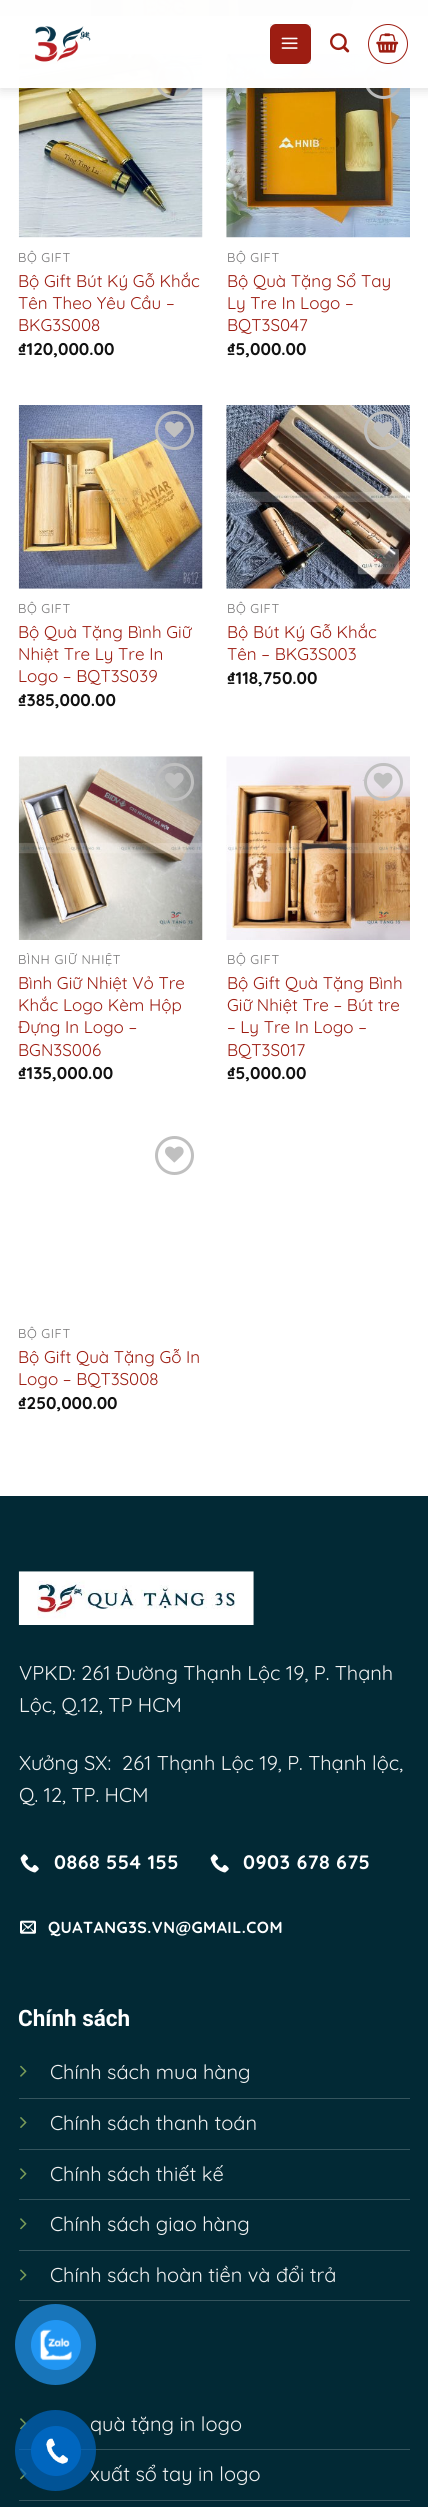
#include <cairo/cairo.h>
#include <math.h>
#include <stddef.h>

typedef struct { double x, y; const char *s; } line_t;
static cairo_t *cr;

static void rgb(unsigned color)
{
	cairo_set_source_rgb(cr, (color >> 16) / 255.0, (color >> 8 & 255) / 255.0, (color & 255) / 255.0);
}

static void tracked(double x, double y, const char *s, double letter, double word)
{
	cairo_move_to(cr, x, y);
	while (*s) {
		char ch[5] = {0};
		int n = 0;
		do ch[n++] = *s++; while ((*s & 0xC0) == 0x80);
		cairo_show_text(cr, ch);
		cairo_rel_move_to(cr, letter + word * (*ch == ' '), 0);
	}
}

static void rrect(double x, double y, double w, double h, double r)
{
	cairo_new_sub_path(cr);
	cairo_arc(cr, x + w - r, y + h - r, r, 0, M_PI / 2);
	cairo_arc(cr, x + r, y + h - r, r, M_PI / 2, M_PI);
	cairo_arc(cr, x + r, y + r, r, M_PI, 1.5 * M_PI);
	cairo_arc(cr, x + w - r, y + r, r, 1.5 * M_PI, 2 * M_PI);
	cairo_close_path(cr);
}

static void soft_shadow(double x, double y, double w, double h, double r, double blur, double alpha)
{
	cairo_push_group_with_content(cr, CAIRO_CONTENT_ALPHA);
	cairo_set_operator(cr, CAIRO_OPERATOR_SOURCE);
	for (int i = 15; i >= -15 && fmin(w, h) + blur * i / 3 > 0; i -= 2) {
		double e = blur * i / 6;
		cairo_set_source_rgba(cr, 0, 0, 0, alpha * erfc((i - 1) / 8.5) / 2);
		rrect(x - e, y - e, w + 2 * e, h + 2 * e, fmax(0, fmin(r + e + blur * .6, fmin(w, h) / 2 + e)));
		cairo_fill(cr);
	}
	cairo_pattern_t *soft = cairo_pop_group(cr);
	cairo_mask(cr, soft);
	cairo_pattern_destroy(soft);
}

static void image(const char *path, double x, double y, double w, double h)
{
	cairo_surface_t *image = cairo_image_surface_create_from_png(path);
	cairo_save(cr);
	cairo_set_source_surface(cr, image, x, y);
	cairo_rectangle(cr, x, y, w, h);
	cairo_fill(cr);
	cairo_restore(cr);
	cairo_surface_destroy(image);
}

int main(void) {
	cairo_surface_t *surface = cairo_image_surface_create(CAIRO_FORMAT_RGB24, 428, 2507);
	cr = cairo_create(surface);
	cairo_font_options_t *options = cairo_font_options_create();
	cairo_font_options_set_hint_metrics(options, CAIRO_HINT_METRICS_OFF);
	cairo_font_options_set_hint_style(options, CAIRO_HINT_STYLE_NONE);
	cairo_set_font_options(cr, options);
	cairo_set_miter_limit(cr, 4);
	rgb(0xffffff);
	cairo_paint(cr);
	image("img/1.png", 0, 0, 428, 16);
	image("img/6.png", 18, 53, 185, 185);
	cairo_arc(cr, 174.5, 79.5, 18, 0, 2 * M_PI);
	rgb(0xc0c0c0);
	cairo_set_line_width(cr, 3);
	cairo_stroke(cr);
	image("img/7.png", 165, 70, 19, 17);
	image("img/8.png", 226, 53, 184, 185);
	cairo_arc(cr, 383.5, 79.5, 18, 0, 2 * M_PI);
	cairo_stroke(cr);
	image("img/9.png", 373, 70, 20, 17);
	cairo_save(cr);
	cairo_set_fill_rule(cr, CAIRO_FILL_RULE_EVEN_ODD);
	cairo_new_path(cr);
	cairo_move_to(cr, 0, 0);
	cairo_line_to(cr, 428, 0);
	cairo_line_to(cr, 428, 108);
	cairo_line_to(cr, 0, 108);
	cairo_close_path(cr);
	cairo_move_to(cr, 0, 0);
	cairo_line_to(cr, 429, 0);
	cairo_line_to(cr, 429, 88);
	cairo_line_to(cr, 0, 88);
	cairo_close_path(cr);
	cairo_clip(cr);
	rgb(0x000000);
	soft_shadow(1, 1, 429, 88, 0, 6, 0.15);
	cairo_restore(cr);
	cairo_set_source_rgba(cr, 1, 1, 1, 0.9);
	cairo_rectangle(cr, 0, 0, 428, 88);
	cairo_fill(cr);
	cairo_rectangle(cr, 0, 0, 428, 88);
	cairo_fill(cr);
	image("img/2.png", 35, 26, 56, 36);
	rgb(0x9d1d12);
	rrect(270, 24, 41, 40, 6);
	cairo_fill(cr);
	cairo_rectangle(cr, 270.5, 24.5, 40, 39);
	cairo_set_source_rgba(cr, 0, 0, 0, 0.05);
	cairo_set_line_width(cr, 1);
	cairo_stroke(cr);
	image("img/3.png", 281, 37, 17, 12);
	image("img/4.png", 330, 33, 20, 20);
	cairo_arc(cr, 388, 44, 19.5, 0, 2 * M_PI);
	rgb(0x9d1d12);
	cairo_stroke(cr);
	image("img/5.png", 376, 33, 23, 20);
	image("img/10.png", 18, 405, 185, 184);
	cairo_arc(cr, 174.5, 430.5, 18, 0, 2 * M_PI);
	rgb(0xc0c0c0);
	cairo_set_line_width(cr, 3);
	cairo_stroke(cr);
	image("img/11.png", 165, 421, 19, 17);
	image("img/12.png", 226, 405, 184, 184);
	cairo_arc(cr, 383.5, 430.5, 18, 0, 2 * M_PI);
	cairo_stroke(cr);
	image("img/13.png", 373, 421, 20, 17);
	image("img/14.png", 18, 756, 185, 184);
	rrect(156.5, 764.5, 36, 35, 17.5);
	cairo_stroke(cr);
	image("img/15.png", 165, 772, 19, 17);
	image("img/16.png", 226, 756, 184, 184);
	rrect(365.5, 764.5, 36, 35, 17.5);
	cairo_stroke(cr);
	image("img/17.png", 373, 772, 20, 17);
	cairo_arc(cr, 174.5, 1155.5, 18, 0, 2 * M_PI);
	cairo_stroke(cr);
	image("img/18.png", 165, 1146, 19, 17);
	rgb(0x022935);
	cairo_rectangle(cr, 0, 1496, 428, 1011);
	cairo_fill(cr);
	image("img/19.png", 18, 1571, 236, 54);
	image("img/20.png", 20, 1854, 19, 19);
	image("img/20.png", 210, 1854, 19, 19);
	image("img/21.png", 20, 1920, 16, 14);
	rgb(0x35545d);
	cairo_rectangle(cr, 19, 2098, 391, 1);
	cairo_fill(cr);
	image("img/22.png", 20, 2065, 7, 12);
	cairo_rectangle(cr, 19, 2149, 391, 1);
	cairo_fill(cr);
	image("img/23.png", 20, 2117, 7, 11);
	cairo_rectangle(cr, 19, 2199, 391, 1);
	cairo_fill(cr);
	image("img/24.png", 20, 2168, 7, 12);
	cairo_rectangle(cr, 19, 2250, 391, 1);
	cairo_fill(cr);
	image("img/24.png", 20, 2218, 7, 12);
	cairo_rectangle(cr, 19, 2300, 391, 1);
	cairo_fill(cr);
	image("img/25.png", 20, 2269, 7, 12);
	cairo_rectangle(cr, 19, 2449, 391, 1);
	cairo_fill(cr);
	image("img/24.png", 20, 2418, 7, 12);
	cairo_rectangle(cr, 19, 2500, 391, 1);
	cairo_fill(cr);
	image("img/24.png", 20, 2468, 7, 12);
	cairo_set_source_rgba(cr, 0.129, 0.588, 0.953, 0.7);
	cairo_arc(cr, 55.5, 2344.5, 40.5, 0, 2 * M_PI);
	cairo_fill(cr);
	rgb(0x2196f3);
	cairo_arc(cr, 56, 2345, 25, 0, 2 * M_PI);
	cairo_fill(cr);
	image("img/26.png", 39, 2329, 33, 32);
	cairo_select_font_face(cr, "Quicksand", CAIRO_FONT_SLANT_NORMAL, CAIRO_FONT_WEIGHT_NORMAL);
	cairo_set_font_size(cr, 12.75);
	rgb(0x727172);
	tracked(18, 262, "BỘ GIFT", 0.6, 0);
	cairo_set_font_size(cr, 17);
	rgb(0x9d1d12);
	{
		static const line_t items[] = {
			{18, 287, "Bộ Gift Bút Ký Gỗ Khắc"},
			{18, 309, "Tên Theo Yêu Cầu –"},
			{18, 331, "BKG3S008"},
		};
		for (size_t i = 0; i < sizeof items / sizeof *items; i++) {
			cairo_move_to(cr, items[i].x, items[i].y);
			cairo_show_text(cr, items[i].s);
		}
	}
	cairo_select_font_face(cr, "Quicksand", CAIRO_FONT_SLANT_NORMAL, CAIRO_FONT_WEIGHT_BOLD);
	rgb(0x111111);
	cairo_move_to(cr, 18, 355);
	cairo_show_text(cr, "₫120,000.00");
	cairo_select_font_face(cr, "Quicksand", CAIRO_FONT_SLANT_NORMAL, CAIRO_FONT_WEIGHT_NORMAL);
	cairo_set_font_size(cr, 12.75);
	rgb(0x727172);
	tracked(227, 262, "BỘ GIFT", 0.6, 0);
	cairo_set_font_size(cr, 17);
	rgb(0x9d1d12);
	{
		static const line_t items[] = {
			{227, 287, "Bộ Quà Tặng Sổ Tay"},
			{227, 309, "Ly Tre In Logo –"},
			{227, 331, "BQT3S047"},
		};
		for (size_t i = 0; i < sizeof items / sizeof *items; i++) {
			cairo_move_to(cr, items[i].x, items[i].y);
			cairo_show_text(cr, items[i].s);
		}
	}
	cairo_select_font_face(cr, "Quicksand", CAIRO_FONT_SLANT_NORMAL, CAIRO_FONT_WEIGHT_BOLD);
	rgb(0x111111);
	cairo_move_to(cr, 227, 355);
	cairo_show_text(cr, "₫5,000.00");
	cairo_select_font_face(cr, "Quicksand", CAIRO_FONT_SLANT_NORMAL, CAIRO_FONT_WEIGHT_NORMAL);
	cairo_set_font_size(cr, 12.75);
	rgb(0x727172);
	tracked(18, 613, "BỘ GIFT", 0.6, 0);
	cairo_set_font_size(cr, 17);
	rgb(0x9d1d12);
	{
		static const line_t items[] = {
			{18, 638, "Bộ Quà Tặng Bình Giữ"},
			{18, 660, "Nhiệt Tre Ly Tre In"},
			{18, 682, "Logo – BQT3S039"},
		};
		for (size_t i = 0; i < sizeof items / sizeof *items; i++) {
			cairo_move_to(cr, items[i].x, items[i].y);
			cairo_show_text(cr, items[i].s);
		}
	}
	cairo_select_font_face(cr, "Quicksand", CAIRO_FONT_SLANT_NORMAL, CAIRO_FONT_WEIGHT_BOLD);
	rgb(0x111111);
	cairo_move_to(cr, 18, 706);
	cairo_show_text(cr, "₫385,000.00");
	cairo_select_font_face(cr, "Quicksand", CAIRO_FONT_SLANT_NORMAL, CAIRO_FONT_WEIGHT_NORMAL);
	cairo_set_font_size(cr, 12.75);
	rgb(0x727172);
	tracked(227, 613, "BỘ GIFT", 0.6, 0);
	cairo_set_font_size(cr, 17);
	rgb(0x9d1d12);
	cairo_move_to(cr, 227, 638);
	cairo_show_text(cr, "Bộ Bút Ký Gỗ Khắc");
	cairo_move_to(cr, 227, 660);
	cairo_show_text(cr, "Tên – BKG3S003");
	cairo_select_font_face(cr, "Quicksand", CAIRO_FONT_SLANT_NORMAL, CAIRO_FONT_WEIGHT_BOLD);
	rgb(0x111111);
	cairo_move_to(cr, 227, 684);
	cairo_show_text(cr, "₫118,750.00");
	cairo_save(cr);
	cairo_rectangle(cr, 19, 953, 184, 16);
	cairo_clip(cr);
	cairo_select_font_face(cr, "Quicksand", CAIRO_FONT_SLANT_NORMAL, CAIRO_FONT_WEIGHT_NORMAL);
	cairo_set_font_size(cr, 12.75);
	rgb(0x727172);
	tracked(18, 964, "BÌNH GIỮ NHIỆT", 0.6, 0);
	cairo_restore(cr);
	cairo_select_font_face(cr, "Quicksand", CAIRO_FONT_SLANT_NORMAL, CAIRO_FONT_WEIGHT_NORMAL);
	rgb(0x9d1d12);
	{
		static const line_t items[] = {
			{18, 989, "Bình Giữ Nhiệt Vỏ Tre"},
			{18, 1011, "Khắc Logo Kèm Hộp"},
			{18, 1033, "Đựng In Logo –"},
			{18, 1056, "BGN3S006"},
		};
		for (size_t i = 0; i < sizeof items / sizeof *items; i++) {
			cairo_move_to(cr, items[i].x, items[i].y);
			cairo_show_text(cr, items[i].s);
		}
	}
	cairo_select_font_face(cr, "Quicksand", CAIRO_FONT_SLANT_NORMAL, CAIRO_FONT_WEIGHT_BOLD);
	rgb(0x111111);
	cairo_move_to(cr, 18, 1079);
	cairo_show_text(cr, "₫135,000.00");
	cairo_select_font_face(cr, "Quicksand", CAIRO_FONT_SLANT_NORMAL, CAIRO_FONT_WEIGHT_NORMAL);
	cairo_set_font_size(cr, 12.75);
	rgb(0x727172);
	tracked(227, 964, "BỘ GIFT", 0.6, 0);
	cairo_set_font_size(cr, 17);
	rgb(0x9d1d12);
	{
		static const line_t items[] = {
			{227, 989, "Bộ Gift Quà Tặng Bình"},
			{227, 1011, "Giữ Nhiệt Tre – Bút tre"},
			{227, 1033, "– Ly Tre In Logo –"},
			{227, 1056, "BQT3S017"},
		};
		for (size_t i = 0; i < sizeof items / sizeof *items; i++) {
			cairo_move_to(cr, items[i].x, items[i].y);
			cairo_show_text(cr, items[i].s);
		}
	}
	cairo_select_font_face(cr, "Quicksand", CAIRO_FONT_SLANT_NORMAL, CAIRO_FONT_WEIGHT_BOLD);
	rgb(0x111111);
	cairo_move_to(cr, 227, 1079);
	cairo_show_text(cr, "₫5,000.00");
	cairo_select_font_face(cr, "Quicksand", CAIRO_FONT_SLANT_NORMAL, CAIRO_FONT_WEIGHT_NORMAL);
	cairo_set_font_size(cr, 12.75);
	rgb(0x727172);
	tracked(18, 1338, "BỘ GIFT", 0.6, 0);
	cairo_set_font_size(cr, 17);
	rgb(0x9d1d12);
	cairo_move_to(cr, 18, 1363);
	cairo_show_text(cr, "Bộ Gift Quà Tặng Gỗ In");
	cairo_move_to(cr, 18, 1385);
	cairo_show_text(cr, "Logo – BQT3S008");
	cairo_select_font_face(cr, "Quicksand", CAIRO_FONT_SLANT_NORMAL, CAIRO_FONT_WEIGHT_BOLD);
	rgb(0x111111);
	cairo_move_to(cr, 18, 1409);
	cairo_show_text(cr, "₫250,000.00");
	cairo_select_font_face(cr, "Quicksand", CAIRO_FONT_SLANT_NORMAL, CAIRO_FONT_WEIGHT_NORMAL);
	cairo_set_font_size(cr, 20);
	rgb(0xf1f1f1);
	{
		static const line_t items[] = {
			{19, 1680, "VPKD: 261 Đường Thạnh Lộc 19, P. Thạnh"},
			{19, 1712, "Lộc, Q.12, TP HCM"},
			{19, 1770, "Xưởng SX:  261 Thạnh Lộc 19, P. Thạnh lộc,"},
			{19, 1802, "Q. 12, TP. HCM"},
		};
		for (size_t i = 0; i < sizeof items / sizeof *items; i++) {
			cairo_move_to(cr, items[i].x, items[i].y);
			cairo_show_text(cr, items[i].s);
		}
	}
	cairo_select_font_face(cr, "Quicksand", CAIRO_FONT_SLANT_NORMAL, CAIRO_FONT_WEIGHT_BOLD);
	cairo_set_font_size(cr, 19.5);
	rgb(0xffffff);
	tracked(54, 1869, "0868 554 155", 0.5, 0);
	tracked(243, 1869, "0903 678 675", 0.5, 0);
	cairo_set_font_size(cr, 16);
	tracked(48, 1933, "QUATANG3S.VN@GMAIL.COM", 0.5, 0);
	cairo_select_font_face(cr, "Roboto", CAIRO_FONT_SLANT_NORMAL, CAIRO_FONT_WEIGHT_BOLD);
	cairo_set_font_size(cr, 22.5);
	cairo_move_to(cr, 18, 2026);
	cairo_show_text(cr, "Chính sách");
	cairo_select_font_face(cr, "Quicksand", CAIRO_FONT_SLANT_NORMAL, CAIRO_FONT_WEIGHT_NORMAL);
	cairo_set_font_size(cr, 20);
	rgb(0xf1f1f1);
	{
		static const line_t items[] = {
			{50, 2079, "Chính sách mua hàng"},
			{50, 2130, "Chính sách thanh toán"},
			{50, 2181, "Chính sách thiết kế"},
			{50, 2231, "Chính sách giao hàng"},
			{50, 2282, "Chính sách hoàn tiền và đổi trả"},
			{90, 2431, "quà tặng in logo"},
			{90, 2481, "xuất sổ tay in logo"},
		};
		for (size_t i = 0; i < sizeof items / sizeof *items; i++) {
			cairo_move_to(cr, items[i].x, items[i].y);
			cairo_show_text(cr, items[i].s);
		}
	}
	cairo_set_source_rgba(cr, 0, 0.4, 0.749, 0.7);
	cairo_new_path(cr);
	cairo_arc(cr, 55.5, 2450.5, 40.5, 0, 2 * M_PI);
	cairo_fill(cr);
	rgb(0x0066bf);
	cairo_arc(cr, 56, 2451, 25, 0, 2 * M_PI);
	cairo_fill(cr);
	image("img/27.png", 46, 2438, 22, 26);
	cairo_surface_write_to_png(surface, "page.png");
	cairo_font_options_destroy(options);
	cairo_destroy(cr);
	cairo_surface_destroy(surface);
	return 0;
}
